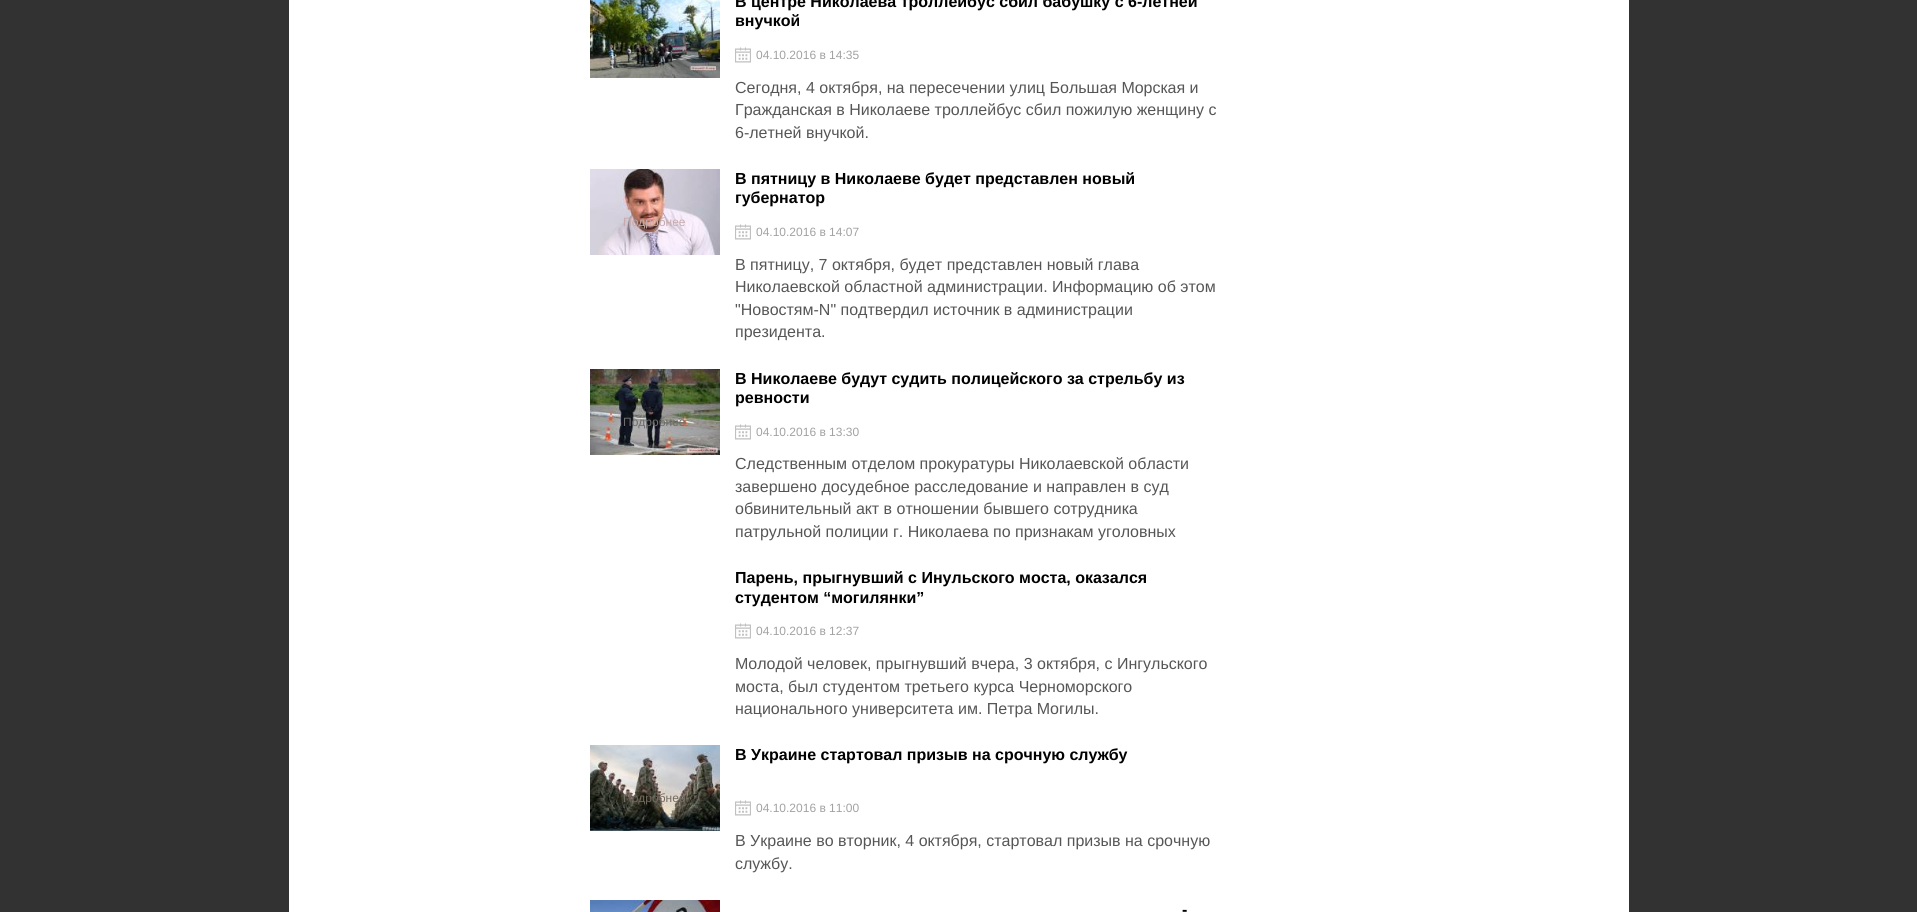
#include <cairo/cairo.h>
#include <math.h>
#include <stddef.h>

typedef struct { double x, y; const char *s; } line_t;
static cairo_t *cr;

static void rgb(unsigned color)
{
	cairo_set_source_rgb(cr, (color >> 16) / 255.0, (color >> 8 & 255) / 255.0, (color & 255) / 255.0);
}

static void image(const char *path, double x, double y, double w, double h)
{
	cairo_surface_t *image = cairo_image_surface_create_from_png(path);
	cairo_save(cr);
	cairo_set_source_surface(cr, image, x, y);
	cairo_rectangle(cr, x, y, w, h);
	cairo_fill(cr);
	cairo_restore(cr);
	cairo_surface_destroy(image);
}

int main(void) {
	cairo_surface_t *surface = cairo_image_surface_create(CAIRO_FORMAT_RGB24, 1917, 912);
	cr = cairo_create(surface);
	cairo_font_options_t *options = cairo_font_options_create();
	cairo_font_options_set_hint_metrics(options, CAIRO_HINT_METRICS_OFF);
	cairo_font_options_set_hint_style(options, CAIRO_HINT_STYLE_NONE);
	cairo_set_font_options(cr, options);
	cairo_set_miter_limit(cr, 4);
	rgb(0x323232);
	cairo_paint(cr);
	rgb(0xffffff);
	cairo_rectangle(cr, 289, 0, 1340, 912);
	cairo_fill(cr);
	image("img/1.png", 590, 0, 130, 78);
	image("img/2.png", 735, 47, 16, 16);
	image("img/3.png", 590, 169, 130, 86);
	image("img/2.png", 735, 224, 16, 16);
	image("img/4.png", 590, 369, 130, 86);
	image("img/2.png", 735, 424, 16, 16);
	image("img/2.png", 735, 623, 16, 16);
	image("img/5.png", 590, 745, 130, 86);
	image("img/2.png", 735, 800, 16, 16);
	image("img/6.png", 590, 900, 130, 12);
	cairo_select_font_face(cr, "Liberation Sans", CAIRO_FONT_SLANT_NORMAL, CAIRO_FONT_WEIGHT_BOLD);
	cairo_set_font_size(cr, 16);
	rgb(0x000000);
	cairo_move_to(cr, 735, 7);
	cairo_show_text(cr, "В центре Николаева троллейбус сбил бабушку с 6-летней");
	cairo_move_to(cr, 735, 26);
	cairo_show_text(cr, "внучкой");
	cairo_select_font_face(cr, "Liberation Sans", CAIRO_FONT_SLANT_NORMAL, CAIRO_FONT_WEIGHT_NORMAL);
	cairo_set_font_size(cr, 12);
	rgb(0xa2a2a2);
	cairo_move_to(cr, 756, 59);
	cairo_show_text(cr, "04.10.2016 в 14:35");
	cairo_set_font_size(cr, 16);
	rgb(0x565656);
	{
		static const line_t items[] = {
			{735, 93, "Сегодня, 4 октября, на пересечении улиц Большая Морская и"},
			{735, 115, "Гражданская в Николаеве троллейбус сбил пожилую женщину с"},
			{735, 138, "6-летней внучкой."},
		};
		for (size_t i = 0; i < sizeof items / sizeof *items; i++) {
			cairo_move_to(cr, items[i].x, items[i].y);
			cairo_show_text(cr, items[i].s);
		}
	}
	cairo_select_font_face(cr, "Liberation Sans", CAIRO_FONT_SLANT_NORMAL, CAIRO_FONT_WEIGHT_BOLD);
	rgb(0x000000);
	cairo_move_to(cr, 735, 184);
	cairo_show_text(cr, "В пятницу в Николаеве будет представлен новый");
	cairo_move_to(cr, 735, 203);
	cairo_show_text(cr, "губернатор");
	cairo_select_font_face(cr, "Liberation Sans", CAIRO_FONT_SLANT_NORMAL, CAIRO_FONT_WEIGHT_NORMAL);
	cairo_set_font_size(cr, 12);
	rgb(0xc6aaac);
	cairo_move_to(cr, 623, 226);
	cairo_show_text(cr, "Подробнее");
	rgb(0xa2a2a2);
	cairo_move_to(cr, 756, 236);
	cairo_show_text(cr, "04.10.2016 в 14:07");
	cairo_set_font_size(cr, 16);
	rgb(0x565656);
	{
		static const line_t items[] = {
			{735, 270, "В пятницу, 7 октября, будет представлен новый глава"},
			{735, 292, "Николаевской областной администрации. Информацию об этом"},
			{735, 315, "\"Новостям-N\" подтвердил источник в администрации"},
			{735, 337, "президента."},
		};
		for (size_t i = 0; i < sizeof items / sizeof *items; i++) {
			cairo_move_to(cr, items[i].x, items[i].y);
			cairo_show_text(cr, items[i].s);
		}
	}
	cairo_select_font_face(cr, "Liberation Sans", CAIRO_FONT_SLANT_NORMAL, CAIRO_FONT_WEIGHT_BOLD);
	rgb(0x000000);
	cairo_move_to(cr, 735, 384);
	cairo_show_text(cr, "В Николаеве будут судить полицейского за стрельбу из");
	cairo_move_to(cr, 735, 403);
	cairo_show_text(cr, "ревности");
	cairo_select_font_face(cr, "Liberation Sans", CAIRO_FONT_SLANT_NORMAL, CAIRO_FONT_WEIGHT_NORMAL);
	cairo_set_font_size(cr, 12);
	rgb(0x6f6e6c);
	cairo_move_to(cr, 623, 426);
	cairo_show_text(cr, "Подробнее");
	rgb(0xa2a2a2);
	cairo_move_to(cr, 756, 436);
	cairo_show_text(cr, "04.10.2016 в 13:30");
	cairo_set_font_size(cr, 16);
	rgb(0x565656);
	{
		static const line_t items[] = {
			{735, 469, "Следственным отделом прокуратуры Николаевской области"},
			{735, 492, "завершено досудебное расследование и направлен в суд"},
			{735, 514, "обвинительный акт в отношении бывшего сотрудника"},
			{735, 537, "патрульной полиции г. Николаева по признакам уголовных"},
		};
		for (size_t i = 0; i < sizeof items / sizeof *items; i++) {
			cairo_move_to(cr, items[i].x, items[i].y);
			cairo_show_text(cr, items[i].s);
		}
	}
	cairo_select_font_face(cr, "Liberation Sans", CAIRO_FONT_SLANT_NORMAL, CAIRO_FONT_WEIGHT_BOLD);
	rgb(0x000000);
	cairo_move_to(cr, 735, 583);
	cairo_show_text(cr, "Парень, прыгнувший с Инульского моста, оказался");
	cairo_move_to(cr, 735, 603);
	cairo_show_text(cr, "студентом “могилянки”");
	cairo_select_font_face(cr, "Liberation Sans", CAIRO_FONT_SLANT_NORMAL, CAIRO_FONT_WEIGHT_NORMAL);
	cairo_set_font_size(cr, 12);
	rgb(0xa2a2a2);
	cairo_move_to(cr, 756, 635);
	cairo_show_text(cr, "04.10.2016 в 12:37");
	cairo_set_font_size(cr, 16);
	rgb(0x565656);
	{
		static const line_t items[] = {
			{735, 669, "Молодой человек, прыгнувший вчера, 3 октября, с Ингульского"},
			{735, 692, "моста, был студентом третьего курса Черноморского"},
			{735, 714, "национального университета им. Петра Могилы."},
		};
		for (size_t i = 0; i < sizeof items / sizeof *items; i++) {
			cairo_move_to(cr, items[i].x, items[i].y);
			cairo_show_text(cr, items[i].s);
		}
	}
	cairo_select_font_face(cr, "Liberation Sans", CAIRO_FONT_SLANT_NORMAL, CAIRO_FONT_WEIGHT_BOLD);
	rgb(0x000000);
	cairo_move_to(cr, 735, 760);
	cairo_show_text(cr, "В Украине стартовал призыв на срочную службу");
	cairo_select_font_face(cr, "Liberation Sans", CAIRO_FONT_SLANT_NORMAL, CAIRO_FONT_WEIGHT_NORMAL);
	cairo_set_font_size(cr, 12);
	rgb(0x726b61);
	cairo_move_to(cr, 623, 802);
	cairo_show_text(cr, "Подробнее");
	rgb(0xa2a2a2);
	cairo_move_to(cr, 756, 812);
	cairo_show_text(cr, "04.10.2016 в 11:00");
	cairo_set_font_size(cr, 16);
	rgb(0x565656);
	cairo_move_to(cr, 735, 846);
	cairo_show_text(cr, "В Украине во вторник, 4 октября, стартовал призыв на срочную");
	cairo_move_to(cr, 735, 869);
	cairo_show_text(cr, "службу.");
	cairo_select_font_face(cr, "Liberation Sans", CAIRO_FONT_SLANT_NORMAL, CAIRO_FONT_WEIGHT_BOLD);
	rgb(0x000000);
	cairo_move_to(cr, 1182, 915);
	cairo_show_text(cr, "-");
	cairo_surface_write_to_png(surface, "page.png");
	cairo_font_options_destroy(options);
	cairo_destroy(cr);
	cairo_surface_destroy(surface);
	return 0;
}
